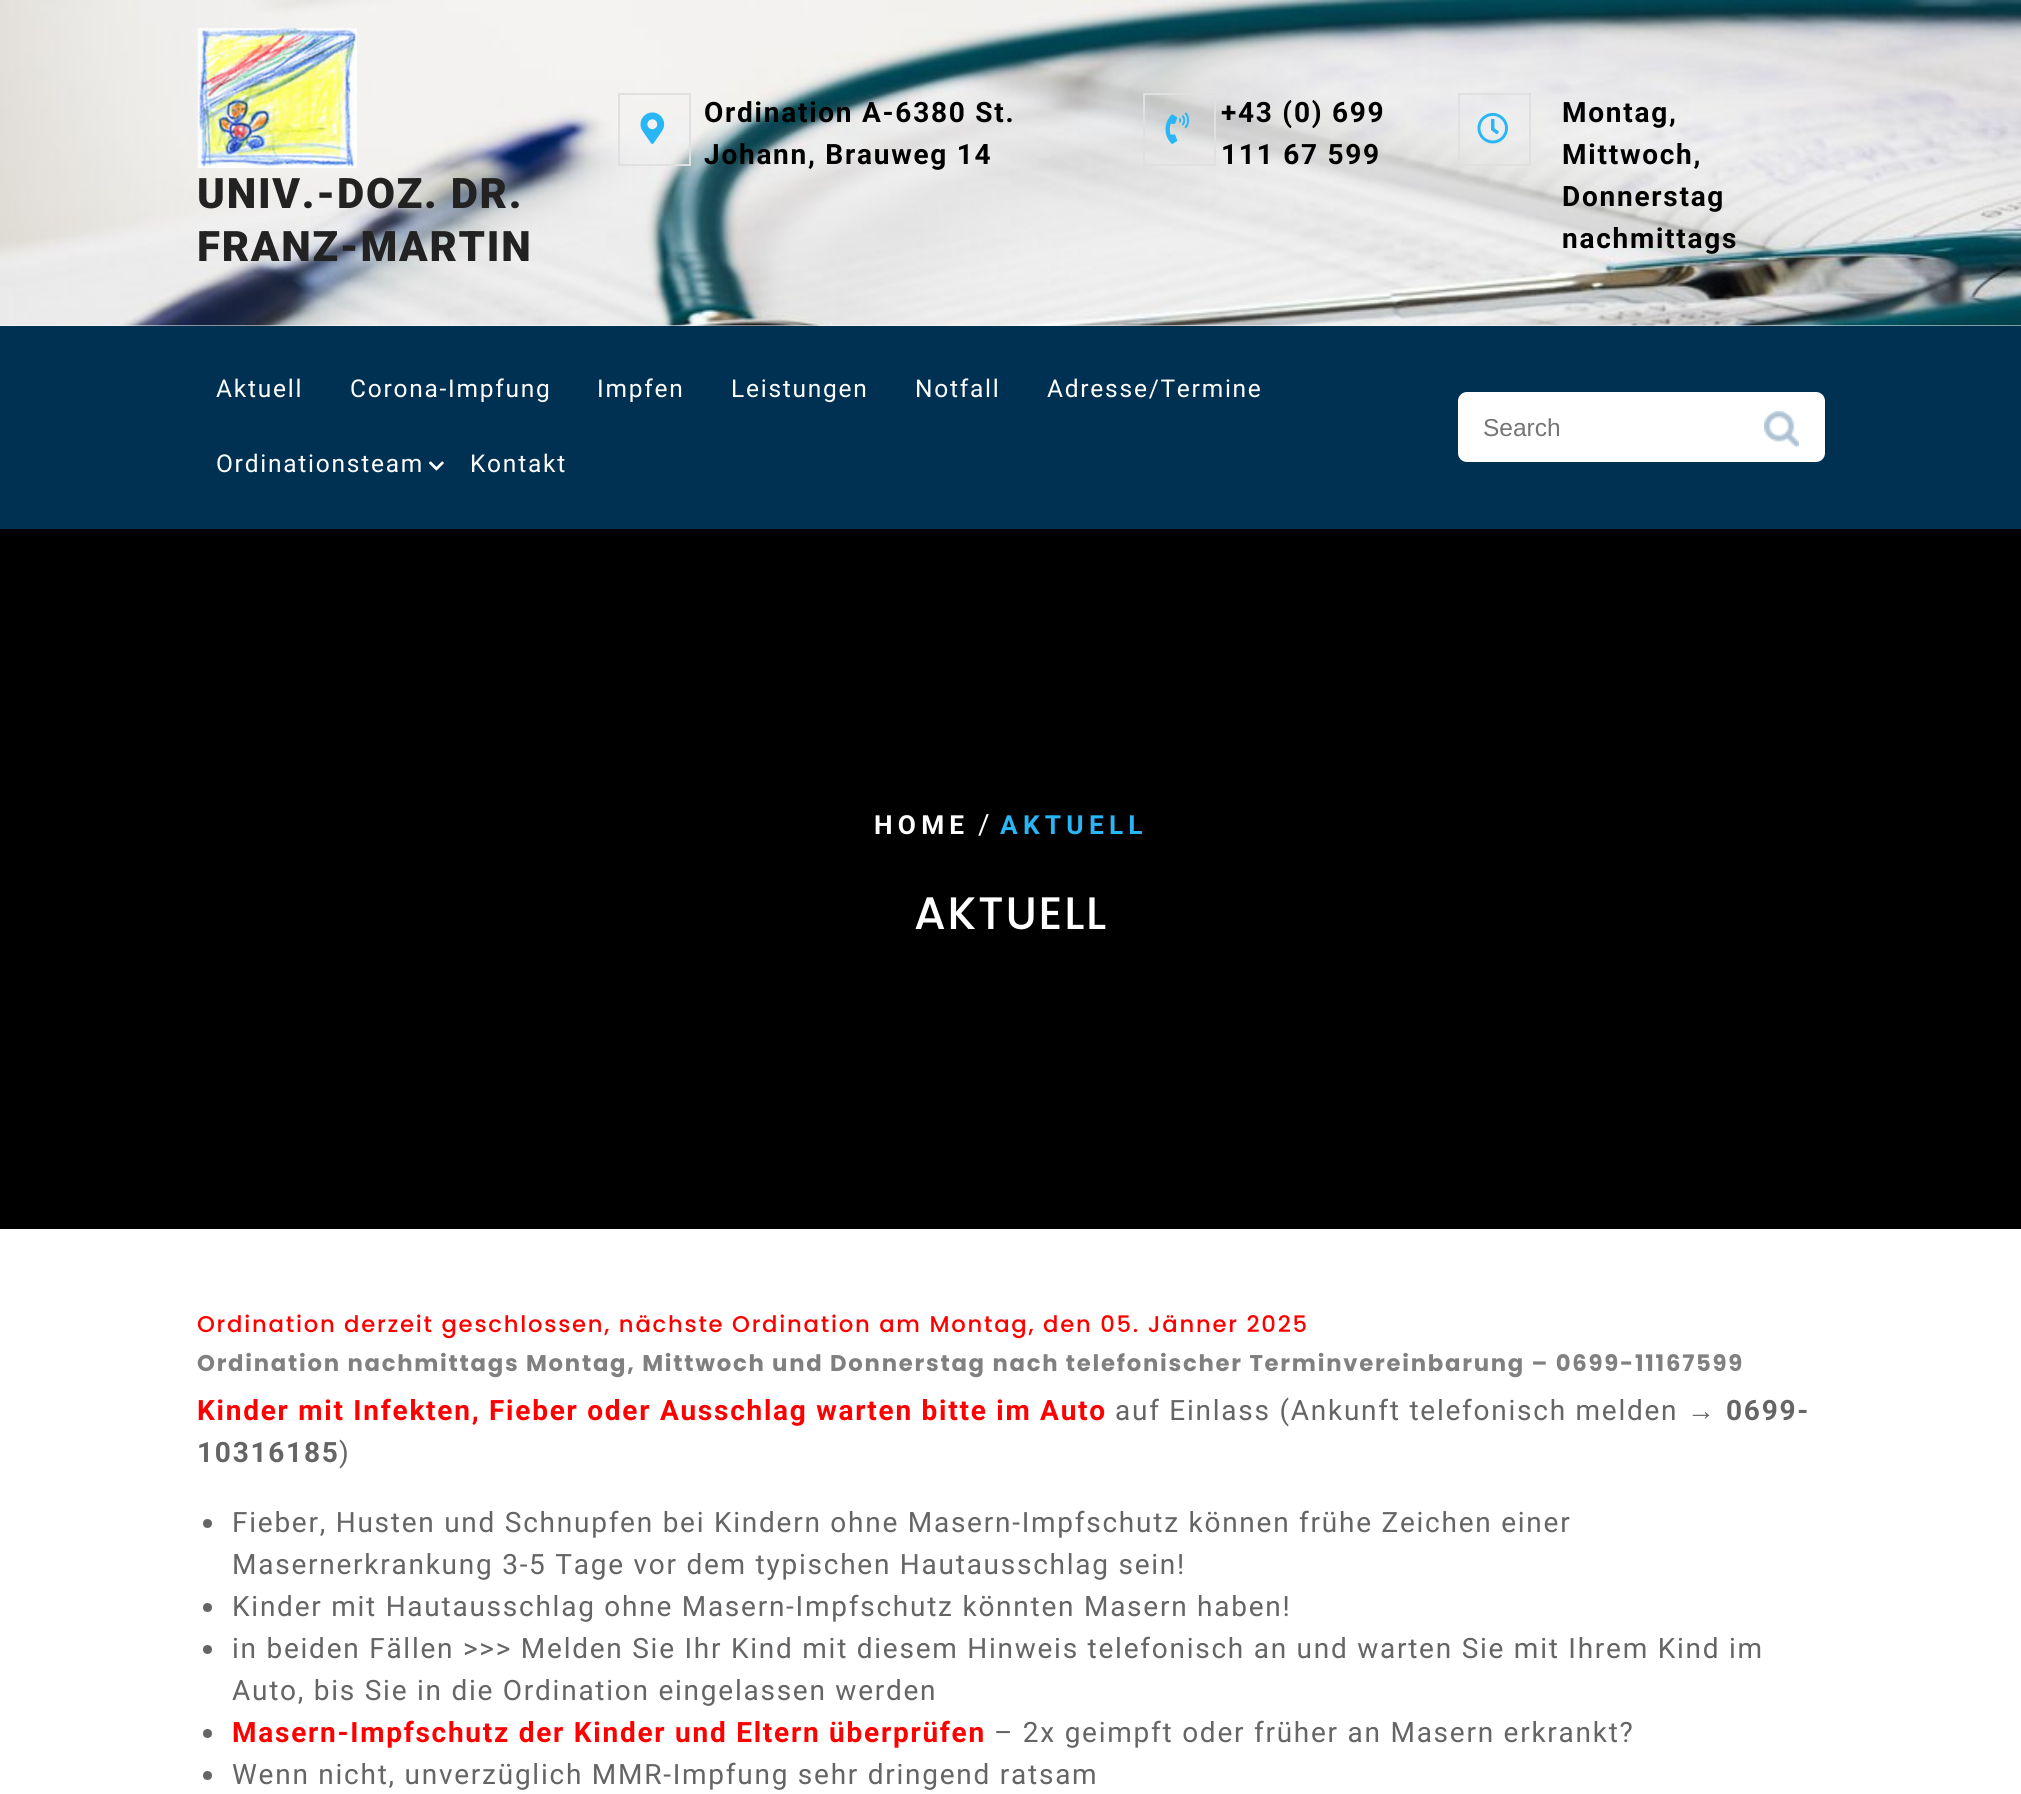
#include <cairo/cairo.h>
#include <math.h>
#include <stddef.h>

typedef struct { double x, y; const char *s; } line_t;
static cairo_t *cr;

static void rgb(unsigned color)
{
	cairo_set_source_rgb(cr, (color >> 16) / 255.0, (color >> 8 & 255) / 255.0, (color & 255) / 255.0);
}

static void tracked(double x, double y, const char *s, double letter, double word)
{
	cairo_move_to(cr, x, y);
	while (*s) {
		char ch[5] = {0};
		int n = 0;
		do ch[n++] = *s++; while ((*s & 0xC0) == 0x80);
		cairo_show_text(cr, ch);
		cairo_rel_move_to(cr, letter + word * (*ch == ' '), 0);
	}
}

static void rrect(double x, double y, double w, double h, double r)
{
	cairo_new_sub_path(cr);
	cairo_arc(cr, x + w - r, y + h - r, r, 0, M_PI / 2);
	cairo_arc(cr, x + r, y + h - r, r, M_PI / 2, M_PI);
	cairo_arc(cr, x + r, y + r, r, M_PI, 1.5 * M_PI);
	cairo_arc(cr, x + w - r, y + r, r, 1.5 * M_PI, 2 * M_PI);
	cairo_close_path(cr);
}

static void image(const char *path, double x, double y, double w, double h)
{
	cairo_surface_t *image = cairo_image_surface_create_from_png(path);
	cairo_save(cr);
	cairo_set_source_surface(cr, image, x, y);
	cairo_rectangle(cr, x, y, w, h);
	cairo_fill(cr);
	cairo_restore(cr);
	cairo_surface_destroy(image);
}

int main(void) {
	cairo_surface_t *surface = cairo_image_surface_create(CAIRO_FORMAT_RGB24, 2021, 1794);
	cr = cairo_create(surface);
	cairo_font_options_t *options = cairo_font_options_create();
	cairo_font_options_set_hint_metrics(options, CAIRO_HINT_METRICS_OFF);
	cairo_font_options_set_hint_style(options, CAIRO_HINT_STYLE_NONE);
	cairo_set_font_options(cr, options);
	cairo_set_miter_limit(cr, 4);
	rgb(0xffffff);
	cairo_paint(cr);
	image("img/1.png", 0, 0, 2021, 326);
	image("img/2.png", 197, 28, 160, 140);
	cairo_rectangle(cr, 619, 94, 71, 71);
	rgb(0xe0e0e0);
	cairo_stroke(cr);
	image("img/3.png", 640, 112, 25, 32);
	cairo_rectangle(cr, 1144, 94, 71, 71);
	cairo_stroke(cr);
	image("img/4.png", 1165, 112, 25, 32);
	cairo_rectangle(cr, 1459, 94, 71, 71);
	cairo_stroke(cr);
	image("img/5.png", 1477, 112, 31, 32);
	rgb(0x003153);
	cairo_rectangle(cr, 0, 326, 2021, 203);
	cairo_fill(cr);
	image("img/6.png", 429, 461, 15, 10);
	rgb(0xffffff);
	rrect(1458, 392, 367, 70, 9);
	cairo_fill(cr);
	image("img/7.png", 1764, 411, 35, 36);
	rgb(0x000000);
	cairo_rectangle(cr, 0, 529, 2021, 700);
	cairo_fill(cr);
	rgb(0x656566);
	cairo_arc(cr, 207.5, 1523.5, 4.5, 0, 2 * M_PI);
	cairo_fill(cr);
	cairo_arc(cr, 207.5, 1607.5, 4.5, 0, 2 * M_PI);
	cairo_fill(cr);
	cairo_arc(cr, 207.5, 1649.5, 4.5, 0, 2 * M_PI);
	cairo_fill(cr);
	cairo_arc(cr, 207.5, 1733.5, 4.5, 0, 2 * M_PI);
	cairo_fill(cr);
	cairo_arc(cr, 207.5, 1775.5, 4.5, 0, 2 * M_PI);
	cairo_fill(cr);
	cairo_select_font_face(cr, "Roboto Black", CAIRO_FONT_SLANT_NORMAL, CAIRO_FONT_WEIGHT_NORMAL);
	cairo_set_font_size(cr, 42);
	rgb(0x222222);
	tracked(197, 208, "UNIV.-DOZ. DR.", 1.75, 0);
	tracked(197, 261, "FRANZ-MARTIN", 1.75, 0);
	cairo_select_font_face(cr, "Roboto", CAIRO_FONT_SLANT_NORMAL, CAIRO_FONT_WEIGHT_BOLD);
	cairo_set_font_size(cr, 28);
	rgb(0x000000);
	{
		static const line_t items[] = {
			{704, 122, "Ordination A-6380 St."},
			{704, 164, "Johann, Brauweg 14"},
			{1221, 122, "+43 (0) 699"},
			{1221, 164, "111 67 599"},
			{1562, 122, "Montag,"},
			{1562, 164, "Mittwoch,"},
			{1562, 206, "Donnerstag"},
			{1562, 248, "nachmittags"},
		};
		for (size_t i = 0; i < sizeof items / sizeof *items; i++) {
			tracked(items[i].x, items[i].y, items[i].s, 1.75, 0);
		}
	}
	cairo_select_font_face(cr, "Roboto", CAIRO_FONT_SLANT_NORMAL, CAIRO_FONT_WEIGHT_NORMAL);
	cairo_set_font_size(cr, 24.5);
	rgb(0xffffff);
	{
		static const line_t items[] = {
			{216, 397, "Aktuell"},
			{350, 397, "Corona-Impfung"},
			{597, 397, "Impfen"},
			{731, 397, "Leistungen"},
			{915, 397, "Notfall"},
			{1047, 397, "Adresse/Termine"},
			{216, 472, "Ordinationsteam"},
			{470, 472, "Kontakt"},
		};
		for (size_t i = 0; i < sizeof items / sizeof *items; i++) {
			tracked(items[i].x, items[i].y, items[i].s, 1.75, 0);
		}
	}
	cairo_select_font_face(cr, "Liberation Sans", CAIRO_FONT_SLANT_NORMAL, CAIRO_FONT_WEIGHT_NORMAL);
	rgb(0x757575);
	cairo_move_to(cr, 1483, 436);
	cairo_show_text(cr, "Search");
	cairo_select_font_face(cr, "Roboto", CAIRO_FONT_SLANT_NORMAL, CAIRO_FONT_WEIGHT_BOLD);
	cairo_set_font_size(cr, 26.25);
	rgb(0xffffff);
	tracked(874, 834, "HOME", 5.25, 0);
	cairo_select_font_face(cr, "Roboto", CAIRO_FONT_SLANT_NORMAL, CAIRO_FONT_WEIGHT_NORMAL);
	cairo_set_font_size(cr, 28);
	tracked(978, 834, "/", 1.75, 0);
	cairo_select_font_face(cr, "Roboto", CAIRO_FONT_SLANT_NORMAL, CAIRO_FONT_WEIGHT_BOLD);
	cairo_set_font_size(cr, 26.25);
	rgb(0x29b6f6);
	tracked(1000, 834, "AKTUELL", 5.25, 0);
	cairo_select_font_face(cr, "Poppins Medium", CAIRO_FONT_SLANT_NORMAL, CAIRO_FONT_WEIGHT_NORMAL);
	cairo_set_font_size(cr, 45.5);
	rgb(0xffffff);
	tracked(914, 929, "AKTUELL", 1.75, 0);
	cairo_set_font_size(cr, 22.75);
	rgb(0xff0000);
	tracked(197, 1332, "Ordination derzeit geschlossen, nächste Ordination am Montag, den 05. Jänner 2025", 1.75, 0);
	cairo_select_font_face(cr, "Poppins", CAIRO_FONT_SLANT_NORMAL, CAIRO_FONT_WEIGHT_BOLD);
	rgb(0x808080);
	tracked(197, 1371, "Ordination nachmittags Montag, Mittwoch und Donnerstag nach telefonischer Terminvereinbarung – 0699-11167599", 1.75, 0);
	cairo_select_font_face(cr, "Roboto", CAIRO_FONT_SLANT_NORMAL, CAIRO_FONT_WEIGHT_BOLD);
	cairo_set_font_size(cr, 28);
	rgb(0xff0000);
	tracked(197, 1420, "Kinder mit Infekten, Fieber oder Ausschlag warten bitte im Auto", 1.75, 0);
	cairo_select_font_face(cr, "Roboto", CAIRO_FONT_SLANT_NORMAL, CAIRO_FONT_WEIGHT_NORMAL);
	rgb(0x656566);
	tracked(1115, 1420, "auf Einlass (Ankunft telefonisch melden", 1.75, 0);
	cairo_select_font_face(cr, "Liberation Sans", CAIRO_FONT_SLANT_NORMAL, CAIRO_FONT_WEIGHT_NORMAL);
	tracked(1687, 1420, "→", 1.75, 0);
	cairo_select_font_face(cr, "Roboto", CAIRO_FONT_SLANT_NORMAL, CAIRO_FONT_WEIGHT_BOLD);
	tracked(1726, 1420, "0699-", 1.75, 0);
	tracked(197, 1462, "10316185", 1.75, 0);
	cairo_select_font_face(cr, "Roboto", CAIRO_FONT_SLANT_NORMAL, CAIRO_FONT_WEIGHT_NORMAL);
	{
		static const line_t items[] = {
			{339, 1462, ")"},
			{232, 1532, "Fieber, Husten und Schnupfen bei Kindern ohne Masern-Impfschutz können frühe Zeichen einer"},
			{232, 1574, "Masernerkrankung 3-5 Tage vor dem typischen Hautausschlag sein!"},
			{232, 1616, "Kinder mit Hautausschlag ohne Masern-Impfschutz könnten Masern haben!"},
			{232, 1658, "in beiden Fällen >>> Melden Sie Ihr Kind mit diesem Hinweis telefonisch an und warten Sie mit Ihrem Kind im"},
			{232, 1700, "Auto, bis Sie in die Ordination eingelassen werden"},
		};
		for (size_t i = 0; i < sizeof items / sizeof *items; i++) {
			tracked(items[i].x, items[i].y, items[i].s, 1.75, 0);
		}
	}
	cairo_select_font_face(cr, "Roboto", CAIRO_FONT_SLANT_NORMAL, CAIRO_FONT_WEIGHT_BOLD);
	rgb(0xff0000);
	tracked(232, 1742, "Masern-Impfschutz der Kinder und Eltern überprüfen", 1.75, 0);
	cairo_select_font_face(cr, "Roboto", CAIRO_FONT_SLANT_NORMAL, CAIRO_FONT_WEIGHT_NORMAL);
	rgb(0x656566);
	tracked(994, 1742, "– 2x geimpft oder früher an Masern erkrankt?", 1.75, 0);
	tracked(232, 1784, "Wenn nicht, unverzüglich MMR-Impfung sehr dringend ratsam", 1.75, 0);
	cairo_surface_write_to_png(surface, "page.png");
	cairo_font_options_destroy(options);
	cairo_destroy(cr);
	cairo_surface_destroy(surface);
	return 0;
}
